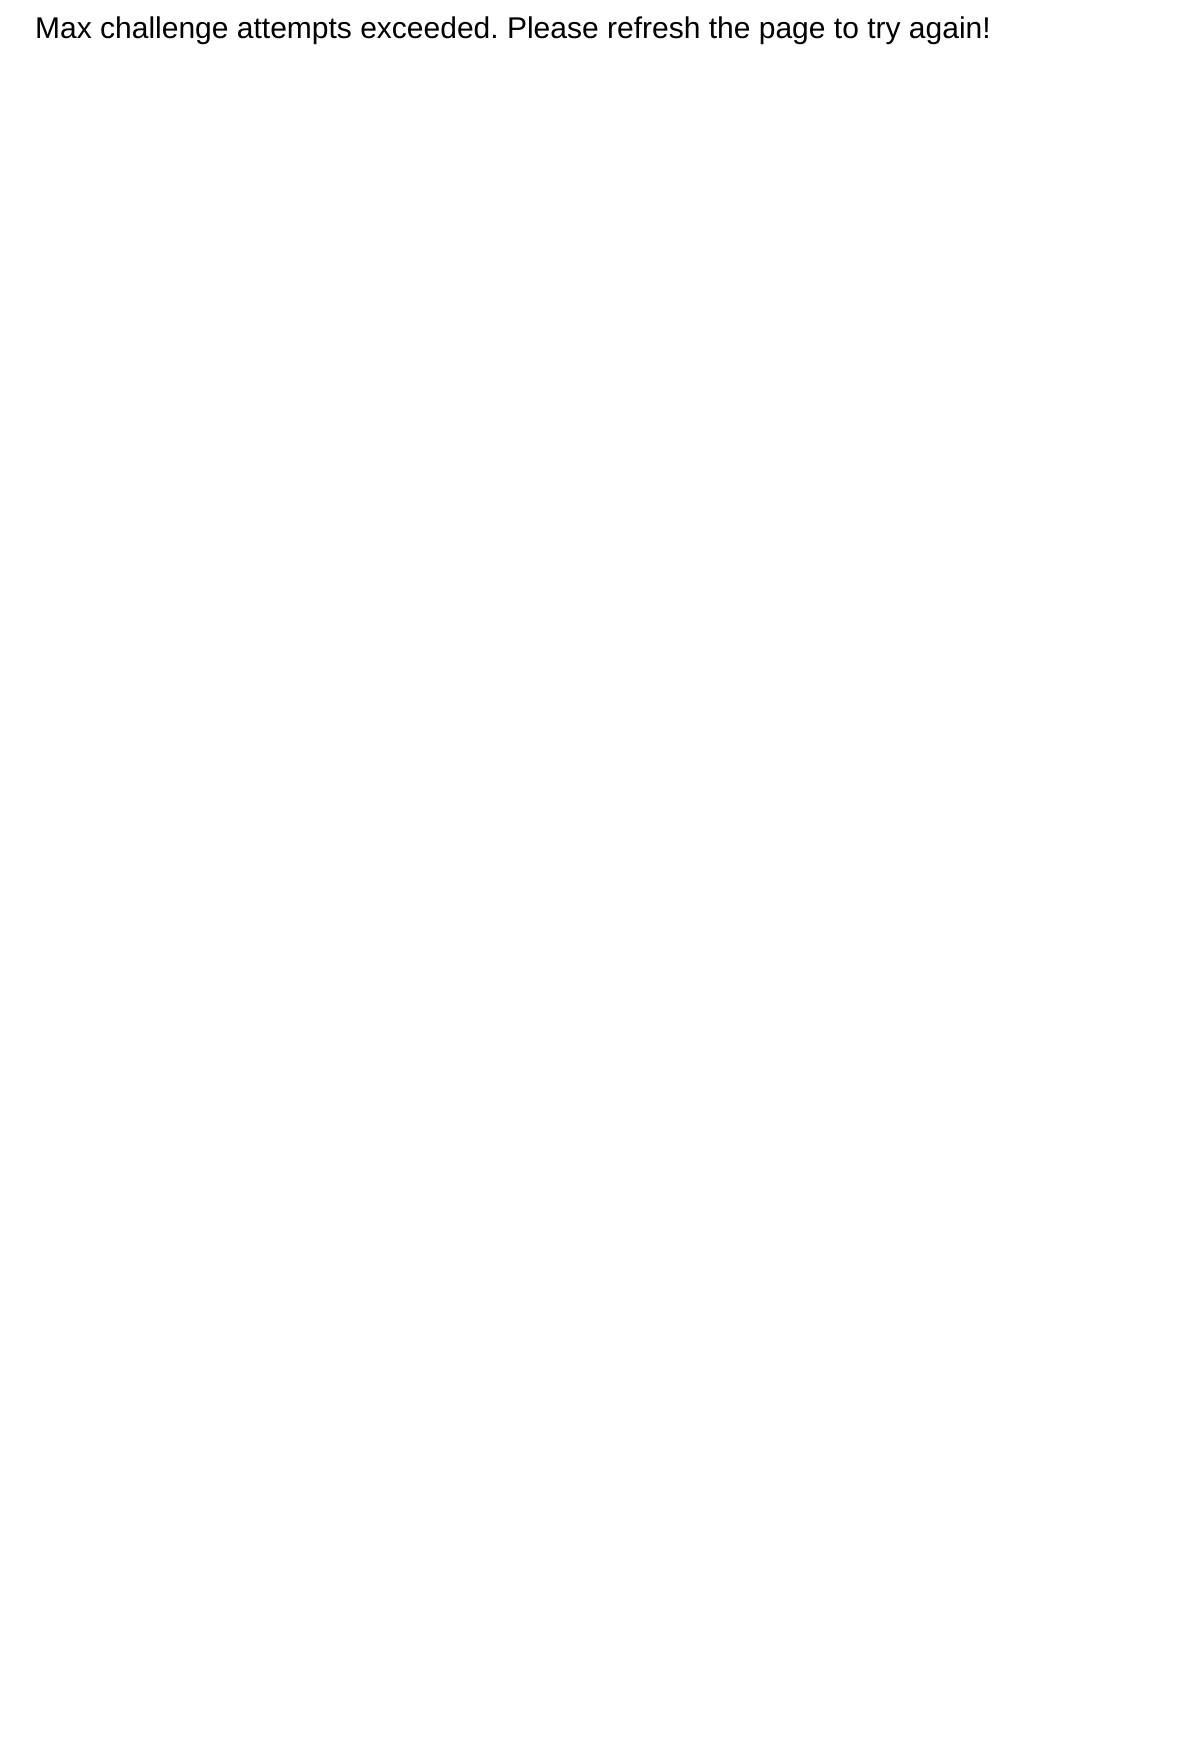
#include <cairo/cairo.h>
#include <math.h>
#include <stddef.h>

static cairo_t *cr;

static void rgb(unsigned color)
{
	cairo_set_source_rgb(cr, (color >> 16) / 255.0, (color >> 8 & 255) / 255.0, (color & 255) / 255.0);
}

int main(void) {
	cairo_surface_t *surface = cairo_image_surface_create(CAIRO_FORMAT_RGB24, 1187, 1744);
	cr = cairo_create(surface);
	cairo_font_options_t *options = cairo_font_options_create();
	cairo_font_options_set_hint_metrics(options, CAIRO_HINT_METRICS_OFF);
	cairo_font_options_set_hint_style(options, CAIRO_HINT_STYLE_NONE);
	cairo_set_font_options(cr, options);
	cairo_set_miter_limit(cr, 4);
	rgb(0xffffff);
	cairo_paint(cr);
	cairo_select_font_face(cr, "Liberation Sans", CAIRO_FONT_SLANT_NORMAL, CAIRO_FONT_WEIGHT_NORMAL);
	cairo_set_font_size(cr, 30);
	rgb(0x000000);
	cairo_move_to(cr, 35, 38);
	cairo_show_text(cr, "Max challenge attempts exceeded. Please refresh the page to try again!");
	cairo_surface_write_to_png(surface, "page.png");
	cairo_font_options_destroy(options);
	cairo_destroy(cr);
	cairo_surface_destroy(surface);
	return 0;
}
